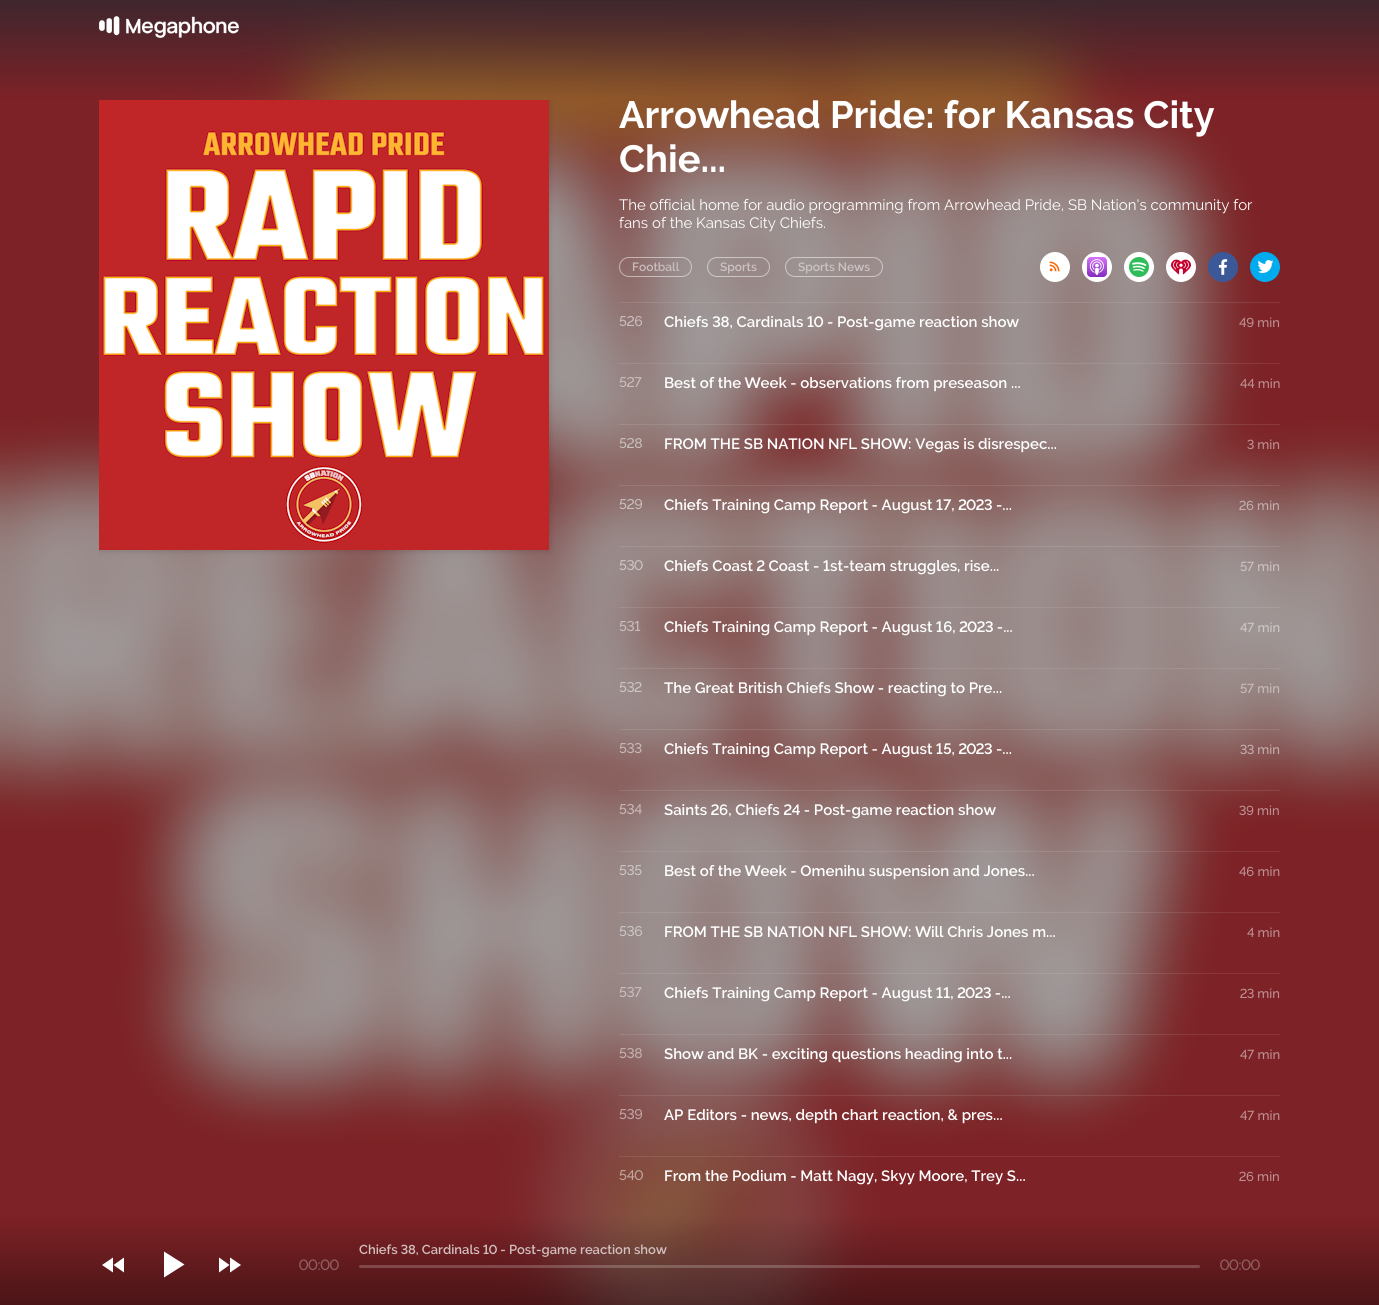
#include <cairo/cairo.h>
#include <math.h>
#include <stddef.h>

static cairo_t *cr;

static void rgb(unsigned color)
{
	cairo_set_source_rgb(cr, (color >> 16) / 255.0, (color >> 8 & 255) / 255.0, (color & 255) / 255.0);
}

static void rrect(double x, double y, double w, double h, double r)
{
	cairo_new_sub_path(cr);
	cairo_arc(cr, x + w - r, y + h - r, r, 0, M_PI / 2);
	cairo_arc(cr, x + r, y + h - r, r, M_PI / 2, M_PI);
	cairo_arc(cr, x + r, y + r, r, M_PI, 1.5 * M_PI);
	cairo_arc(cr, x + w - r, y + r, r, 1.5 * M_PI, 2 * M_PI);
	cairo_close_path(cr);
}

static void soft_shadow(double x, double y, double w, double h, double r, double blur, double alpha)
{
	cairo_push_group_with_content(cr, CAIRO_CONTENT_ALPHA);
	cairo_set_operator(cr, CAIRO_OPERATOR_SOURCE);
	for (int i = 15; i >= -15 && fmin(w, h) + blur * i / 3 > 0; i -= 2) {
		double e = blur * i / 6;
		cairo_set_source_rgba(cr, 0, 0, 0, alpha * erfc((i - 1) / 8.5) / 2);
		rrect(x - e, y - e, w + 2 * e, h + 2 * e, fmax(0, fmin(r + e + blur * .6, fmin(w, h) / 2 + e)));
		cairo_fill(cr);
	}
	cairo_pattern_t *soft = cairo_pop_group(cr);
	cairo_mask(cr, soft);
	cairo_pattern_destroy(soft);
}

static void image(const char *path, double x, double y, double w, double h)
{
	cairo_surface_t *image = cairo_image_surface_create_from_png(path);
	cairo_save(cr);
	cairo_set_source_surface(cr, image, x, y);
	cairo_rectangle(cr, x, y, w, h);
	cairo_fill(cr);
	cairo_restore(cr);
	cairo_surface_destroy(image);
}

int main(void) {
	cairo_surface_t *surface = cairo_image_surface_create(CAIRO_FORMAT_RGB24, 1379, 1305);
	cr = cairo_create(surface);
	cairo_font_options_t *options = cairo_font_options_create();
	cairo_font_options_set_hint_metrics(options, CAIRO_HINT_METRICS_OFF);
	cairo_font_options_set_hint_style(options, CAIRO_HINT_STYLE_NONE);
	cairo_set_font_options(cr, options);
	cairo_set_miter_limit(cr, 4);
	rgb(0xffffff);
	cairo_paint(cr);
	image("img/1.png", 0, 0, 1379, 1305);
	image("img/2.png", 99, 16, 140, 22);
	cairo_save(cr);
	cairo_rectangle(cr, 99, 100, 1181, 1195);
	cairo_clip(cr);
	rgb(0x000000);
	soft_shadow(97, 98, 454, 454, 0, 2.5, 0.1);
	cairo_restore(cr);
	image("img/3.png", 99, 100, 450, 450);
	rrect(619.5, 257.5, 72, 19, 9.5);
	cairo_set_source_rgba(cr, 1, 1, 1, 0.5);
	cairo_set_line_width(cr, 1);
	cairo_stroke(cr);
	rrect(707.5, 257.5, 62, 19, 9.5);
	cairo_stroke(cr);
	rrect(785.5, 257.5, 97, 19, 9.5);
	cairo_stroke(cr);
	rgb(0xffffff);
	cairo_arc(cr, 1055, 267, 15, 0, 2 * M_PI);
	cairo_fill(cr);
	image("img/4.png", 1049, 261, 11, 11);
	cairo_arc(cr, 1097, 267, 15, 0, 2 * M_PI);
	cairo_fill(cr);
	image("img/5.png", 1087, 257, 20, 20);
	cairo_arc(cr, 1139, 267, 15, 0, 2 * M_PI);
	cairo_fill(cr);
	image("img/6.png", 1129, 257, 20, 20);
	cairo_arc(cr, 1181, 267, 15, 0, 2 * M_PI);
	cairo_fill(cr);
	image("img/7.png", 1171, 259, 20, 16);
	rgb(0x3b5998);
	cairo_arc(cr, 1223, 267, 15, 0, 2 * M_PI);
	cairo_fill(cr);
	image("img/8.png", 1218, 259, 10, 16);
	rgb(0x00aced);
	cairo_arc(cr, 1265, 267, 15, 0, 2 * M_PI);
	cairo_fill(cr);
	image("img/9.png", 1257, 260, 17, 13);
	cairo_set_source_rgba(cr, 1, 1, 1, 0.1);
	cairo_rectangle(cr, 619, 302, 661, 1);
	cairo_fill(cr);
	cairo_rectangle(cr, 619, 363, 661, 1);
	cairo_fill(cr);
	cairo_rectangle(cr, 619, 424, 661, 1);
	cairo_fill(cr);
	cairo_rectangle(cr, 619, 485, 661, 1);
	cairo_fill(cr);
	cairo_rectangle(cr, 619, 546, 661, 1);
	cairo_fill(cr);
	cairo_rectangle(cr, 619, 607, 661, 1);
	cairo_fill(cr);
	cairo_rectangle(cr, 619, 668, 661, 1);
	cairo_fill(cr);
	cairo_rectangle(cr, 619, 729, 661, 1);
	cairo_fill(cr);
	cairo_rectangle(cr, 619, 790, 661, 1);
	cairo_fill(cr);
	cairo_rectangle(cr, 619, 851, 661, 1);
	cairo_fill(cr);
	cairo_rectangle(cr, 619, 912, 661, 1);
	cairo_fill(cr);
	cairo_rectangle(cr, 619, 973, 661, 1);
	cairo_fill(cr);
	cairo_rectangle(cr, 619, 1034, 661, 1);
	cairo_fill(cr);
	cairo_rectangle(cr, 619, 1095, 661, 1);
	cairo_fill(cr);
	cairo_rectangle(cr, 619, 1156, 661, 1);
	cairo_fill(cr);
	rgb(0xffffff);
	cairo_new_path(cr);
	cairo_move_to(cr, 113.5, 1265);
	cairo_line_to(cr, 124, 1257.5);
	cairo_line_to(cr, 124, 1272.5);
	cairo_close_path(cr);
	cairo_move_to(cr, 113, 1272.5);
	cairo_line_to(cr, 102, 1265);
	cairo_line_to(cr, 113, 1257.5);
	cairo_close_path(cr);
	cairo_fill(cr);
	cairo_new_path(cr);
	cairo_move_to(cr, 164, 1251.5);
	cairo_line_to(cr, 184.5, 1264.5);
	cairo_line_to(cr, 164, 1277.5);
	cairo_close_path(cr);
	cairo_fill(cr);
	cairo_new_path(cr);
	cairo_move_to(cr, 230, 1257.5);
	cairo_line_to(cr, 241, 1265);
	cairo_line_to(cr, 230, 1272.5);
	cairo_close_path(cr);
	cairo_move_to(cr, 219, 1272.5);
	cairo_line_to(cr, 219, 1257.5);
	cairo_line_to(cr, 229.5, 1265);
	cairo_close_path(cr);
	cairo_fill(cr);
	cairo_set_source_rgba(cr, 1, 1, 1, 0.2);
	rrect(359, 1265, 841, 3, 1.5);
	cairo_fill(cr);
	cairo_select_font_face(cr, "Raleway", CAIRO_FONT_SLANT_NORMAL, CAIRO_FONT_WEIGHT_BOLD);
	cairo_set_font_size(cr, 38);
	rgb(0xffffff);
	cairo_move_to(cr, 619, 128);
	cairo_show_text(cr, "Arrowhead Pride: for Kansas City");
	cairo_move_to(cr, 619, 172);
	cairo_show_text(cr, "Chie...");
	cairo_select_font_face(cr, "Raleway", CAIRO_FONT_SLANT_NORMAL, CAIRO_FONT_WEIGHT_NORMAL);
	cairo_set_font_size(cr, 15);
	cairo_move_to(cr, 619, 210);
	cairo_show_text(cr, "The official home for audio programming from Arrowhead Pride, SB Nation's community for");
	cairo_move_to(cr, 619, 228);
	cairo_show_text(cr, "fans of the Kansas City Chiefs.");
	cairo_select_font_face(cr, "Raleway SemiBold", CAIRO_FONT_SLANT_NORMAL, CAIRO_FONT_WEIGHT_NORMAL);
	cairo_set_font_size(cr, 12);
	rgb(0xc9bebd);
	cairo_move_to(cr, 632, 271);
	cairo_show_text(cr, "Football");
	rgb(0xccc4c4);
	cairo_move_to(cr, 720, 271);
	cairo_show_text(cr, "Sports");
	cairo_move_to(cr, 798, 271);
	cairo_show_text(cr, "Sports News");
	cairo_select_font_face(cr, "Raleway Medium", CAIRO_FONT_SLANT_NORMAL, CAIRO_FONT_WEIGHT_NORMAL);
	cairo_set_font_size(cr, 14);
	rgb(0xc9bebd);
	cairo_move_to(cr, 619, 326);
	cairo_show_text(cr, "526");
	cairo_select_font_face(cr, "Raleway SemiBold", CAIRO_FONT_SLANT_NORMAL, CAIRO_FONT_WEIGHT_NORMAL);
	cairo_set_font_size(cr, 15);
	rgb(0xffffff);
	cairo_move_to(cr, 664, 327);
	cairo_show_text(cr, "Chiefs 38, Cardinals 10 - Post-game reaction show");
	cairo_select_font_face(cr, "Raleway Medium", CAIRO_FONT_SLANT_NORMAL, CAIRO_FONT_WEIGHT_NORMAL);
	cairo_set_font_size(cr, 13);
	rgb(0xbe9294);
	cairo_move_to(cr, 1239, 327);
	cairo_show_text(cr, "49 min");
	cairo_set_font_size(cr, 14);
	rgb(0xc9bebd);
	cairo_move_to(cr, 619, 387);
	cairo_show_text(cr, "527");
	cairo_select_font_face(cr, "Raleway SemiBold", CAIRO_FONT_SLANT_NORMAL, CAIRO_FONT_WEIGHT_NORMAL);
	cairo_set_font_size(cr, 15);
	rgb(0xffffff);
	cairo_move_to(cr, 664, 388);
	cairo_show_text(cr, "Best of the Week - observations from preseason ...");
	cairo_select_font_face(cr, "Raleway Medium", CAIRO_FONT_SLANT_NORMAL, CAIRO_FONT_WEIGHT_NORMAL);
	cairo_set_font_size(cr, 13);
	rgb(0xbe9294);
	cairo_move_to(cr, 1240, 388);
	cairo_show_text(cr, "44 min");
	cairo_set_font_size(cr, 14);
	rgb(0xc9bebd);
	cairo_move_to(cr, 619, 448);
	cairo_show_text(cr, "528");
	cairo_select_font_face(cr, "Raleway SemiBold", CAIRO_FONT_SLANT_NORMAL, CAIRO_FONT_WEIGHT_NORMAL);
	cairo_set_font_size(cr, 15);
	rgb(0xffffff);
	cairo_move_to(cr, 664, 449);
	cairo_show_text(cr, "FROM THE SB NATION NFL SHOW: Vegas is disrespec...");
	cairo_select_font_face(cr, "Raleway Medium", CAIRO_FONT_SLANT_NORMAL, CAIRO_FONT_WEIGHT_NORMAL);
	cairo_set_font_size(cr, 13);
	rgb(0xbe9294);
	cairo_move_to(cr, 1247, 449);
	cairo_show_text(cr, "3 min");
	cairo_set_font_size(cr, 14);
	rgb(0xc9bebd);
	cairo_move_to(cr, 619, 509);
	cairo_show_text(cr, "529");
	cairo_select_font_face(cr, "Raleway SemiBold", CAIRO_FONT_SLANT_NORMAL, CAIRO_FONT_WEIGHT_NORMAL);
	cairo_set_font_size(cr, 15);
	rgb(0xffffff);
	cairo_move_to(cr, 664, 510);
	cairo_show_text(cr, "Chiefs Training Camp Report - August 17, 2023 -...");
	cairo_select_font_face(cr, "Raleway Medium", CAIRO_FONT_SLANT_NORMAL, CAIRO_FONT_WEIGHT_NORMAL);
	cairo_set_font_size(cr, 13);
	rgb(0xc5b0b0);
	cairo_move_to(cr, 1239, 510);
	cairo_show_text(cr, "26 min");
	cairo_set_font_size(cr, 14);
	rgb(0xccc4c4);
	cairo_move_to(cr, 619, 570);
	cairo_show_text(cr, "530");
	cairo_select_font_face(cr, "Raleway SemiBold", CAIRO_FONT_SLANT_NORMAL, CAIRO_FONT_WEIGHT_NORMAL);
	cairo_set_font_size(cr, 15);
	rgb(0xffffff);
	cairo_move_to(cr, 664, 571);
	cairo_show_text(cr, "Chiefs Coast 2 Coast - 1st-team struggles, rise...");
	cairo_select_font_face(cr, "Raleway Medium", CAIRO_FONT_SLANT_NORMAL, CAIRO_FONT_WEIGHT_NORMAL);
	cairo_set_font_size(cr, 13);
	rgb(0xccc4c4);
	cairo_move_to(cr, 1240, 571);
	cairo_show_text(cr, "57 min");
	cairo_set_font_size(cr, 14);
	rgb(0xc9bebd);
	cairo_move_to(cr, 619, 631);
	cairo_show_text(cr, "531");
	cairo_select_font_face(cr, "Raleway SemiBold", CAIRO_FONT_SLANT_NORMAL, CAIRO_FONT_WEIGHT_NORMAL);
	cairo_set_font_size(cr, 15);
	rgb(0xffffff);
	cairo_move_to(cr, 664, 632);
	cairo_show_text(cr, "Chiefs Training Camp Report - August 16, 2023 -...");
	cairo_select_font_face(cr, "Raleway Medium", CAIRO_FONT_SLANT_NORMAL, CAIRO_FONT_WEIGHT_NORMAL);
	cairo_set_font_size(cr, 13);
	rgb(0xcecac9);
	cairo_move_to(cr, 1240, 632);
	cairo_show_text(cr, "47 min");
	cairo_set_font_size(cr, 14);
	rgb(0xccc4c4);
	cairo_move_to(cr, 619, 692);
	cairo_show_text(cr, "532");
	cairo_select_font_face(cr, "Raleway SemiBold", CAIRO_FONT_SLANT_NORMAL, CAIRO_FONT_WEIGHT_NORMAL);
	cairo_set_font_size(cr, 15);
	rgb(0xffffff);
	cairo_move_to(cr, 664, 693);
	cairo_show_text(cr, "The Great British Chiefs Show - reacting to Pre...");
	cairo_select_font_face(cr, "Raleway Medium", CAIRO_FONT_SLANT_NORMAL, CAIRO_FONT_WEIGHT_NORMAL);
	cairo_set_font_size(cr, 13);
	rgb(0xc9bebd);
	cairo_move_to(cr, 1240, 693);
	cairo_show_text(cr, "57 min");
	cairo_set_font_size(cr, 14);
	rgb(0xc7b8b7);
	cairo_move_to(cr, 619, 753);
	cairo_show_text(cr, "533");
	cairo_select_font_face(cr, "Raleway SemiBold", CAIRO_FONT_SLANT_NORMAL, CAIRO_FONT_WEIGHT_NORMAL);
	cairo_set_font_size(cr, 15);
	rgb(0xffffff);
	cairo_move_to(cr, 664, 754);
	cairo_show_text(cr, "Chiefs Training Camp Report - August 15, 2023 -...");
	cairo_select_font_face(cr, "Raleway Medium", CAIRO_FONT_SLANT_NORMAL, CAIRO_FONT_WEIGHT_NORMAL);
	cairo_set_font_size(cr, 13);
	rgb(0xc5b0b0);
	cairo_move_to(cr, 1240, 754);
	cairo_show_text(cr, "33 min");
	cairo_set_font_size(cr, 14);
	rgb(0xc7b8b7);
	cairo_move_to(cr, 619, 814);
	cairo_show_text(cr, "534");
	cairo_select_font_face(cr, "Raleway SemiBold", CAIRO_FONT_SLANT_NORMAL, CAIRO_FONT_WEIGHT_NORMAL);
	cairo_set_font_size(cr, 15);
	rgb(0xffffff);
	cairo_move_to(cr, 664, 815);
	cairo_show_text(cr, "Saints 26, Chiefs 24 - Post-game reaction show");
	cairo_select_font_face(cr, "Raleway Medium", CAIRO_FONT_SLANT_NORMAL, CAIRO_FONT_WEIGHT_NORMAL);
	cairo_set_font_size(cr, 13);
	rgb(0xbe9294);
	cairo_move_to(cr, 1239, 815);
	cairo_show_text(cr, "39 min");
	cairo_set_font_size(cr, 14);
	rgb(0xccc4c4);
	cairo_move_to(cr, 619, 875);
	cairo_show_text(cr, "535");
	cairo_select_font_face(cr, "Raleway SemiBold", CAIRO_FONT_SLANT_NORMAL, CAIRO_FONT_WEIGHT_NORMAL);
	cairo_set_font_size(cr, 15);
	rgb(0xffffff);
	cairo_move_to(cr, 664, 876);
	cairo_show_text(cr, "Best of the Week - Omenihu suspension and Jones...");
	cairo_select_font_face(cr, "Raleway Medium", CAIRO_FONT_SLANT_NORMAL, CAIRO_FONT_WEIGHT_NORMAL);
	cairo_set_font_size(cr, 13);
	rgb(0xbe9294);
	cairo_move_to(cr, 1239, 876);
	cairo_show_text(cr, "46 min");
	cairo_set_font_size(cr, 14);
	rgb(0xccc4c4);
	cairo_move_to(cr, 619, 936);
	cairo_show_text(cr, "536");
	cairo_select_font_face(cr, "Raleway SemiBold", CAIRO_FONT_SLANT_NORMAL, CAIRO_FONT_WEIGHT_NORMAL);
	cairo_set_font_size(cr, 15);
	rgb(0xffffff);
	cairo_move_to(cr, 664, 937);
	cairo_show_text(cr, "FROM THE SB NATION NFL SHOW: Will Chris Jones m...");
	cairo_select_font_face(cr, "Raleway Medium", CAIRO_FONT_SLANT_NORMAL, CAIRO_FONT_WEIGHT_NORMAL);
	cairo_set_font_size(cr, 13);
	rgb(0xbe9294);
	cairo_move_to(cr, 1247, 937);
	cairo_show_text(cr, "4 min");
	cairo_set_font_size(cr, 14);
	rgb(0xc9bebd);
	cairo_move_to(cr, 619, 997);
	cairo_show_text(cr, "537");
	cairo_select_font_face(cr, "Raleway SemiBold", CAIRO_FONT_SLANT_NORMAL, CAIRO_FONT_WEIGHT_NORMAL);
	cairo_set_font_size(cr, 15);
	rgb(0xffffff);
	cairo_move_to(cr, 664, 998);
	cairo_show_text(cr, "Chiefs Training Camp Report - August 11, 2023 -...");
	cairo_select_font_face(cr, "Raleway Medium", CAIRO_FONT_SLANT_NORMAL, CAIRO_FONT_WEIGHT_NORMAL);
	cairo_set_font_size(cr, 13);
	rgb(0xbe9294);
	cairo_move_to(cr, 1240, 998);
	cairo_show_text(cr, "23 min");
	cairo_set_font_size(cr, 14);
	rgb(0xc5b0b0);
	cairo_move_to(cr, 619, 1058);
	cairo_show_text(cr, "538");
	cairo_select_font_face(cr, "Raleway SemiBold", CAIRO_FONT_SLANT_NORMAL, CAIRO_FONT_WEIGHT_NORMAL);
	cairo_set_font_size(cr, 15);
	rgb(0xffffff);
	cairo_move_to(cr, 664, 1059);
	cairo_show_text(cr, "Show and BK - exciting questions heading into t...");
	cairo_select_font_face(cr, "Raleway Medium", CAIRO_FONT_SLANT_NORMAL, CAIRO_FONT_WEIGHT_NORMAL);
	cairo_set_font_size(cr, 13);
	rgb(0xbe9294);
	cairo_move_to(cr, 1240, 1059);
	cairo_show_text(cr, "47 min");
	cairo_set_font_size(cr, 14);
	rgb(0xc2a6a6);
	cairo_move_to(cr, 619, 1119);
	cairo_show_text(cr, "539");
	cairo_select_font_face(cr, "Raleway SemiBold", CAIRO_FONT_SLANT_NORMAL, CAIRO_FONT_WEIGHT_NORMAL);
	cairo_set_font_size(cr, 15);
	rgb(0xffffff);
	cairo_move_to(cr, 664, 1120);
	cairo_show_text(cr, "AP Editors - news, depth chart reaction, & pres...");
	cairo_select_font_face(cr, "Raleway Medium", CAIRO_FONT_SLANT_NORMAL, CAIRO_FONT_WEIGHT_NORMAL);
	cairo_set_font_size(cr, 13);
	rgb(0xbe9294);
	cairo_move_to(cr, 1240, 1120);
	cairo_show_text(cr, "47 min");
	cairo_set_font_size(cr, 14);
	rgb(0xc1a59e);
	cairo_move_to(cr, 619, 1180);
	cairo_show_text(cr, "540");
	cairo_select_font_face(cr, "Raleway SemiBold", CAIRO_FONT_SLANT_NORMAL, CAIRO_FONT_WEIGHT_NORMAL);
	cairo_set_font_size(cr, 15);
	rgb(0xffffff);
	cairo_move_to(cr, 664, 1181);
	cairo_show_text(cr, "From the Podium - Matt Nagy, Skyy Moore, Trey S...");
	cairo_select_font_face(cr, "Raleway Medium", CAIRO_FONT_SLANT_NORMAL, CAIRO_FONT_WEIGHT_NORMAL);
	cairo_set_font_size(cr, 13);
	rgb(0xbe9294);
	cairo_move_to(cr, 1239, 1181);
	cairo_show_text(cr, "26 min");
	cairo_set_font_size(cr, 15);
	rgb(0x915f61);
	cairo_move_to(cr, 299, 1270);
	cairo_show_text(cr, "00:00");
	cairo_select_font_face(cr, "Raleway SemiBold", CAIRO_FONT_SLANT_NORMAL, CAIRO_FONT_WEIGHT_NORMAL);
	cairo_set_font_size(cr, 13);
	rgb(0xd3bfbf);
	cairo_move_to(cr, 359, 1254);
	cairo_show_text(cr, "Chiefs 38, Cardinals 10 - Post-game reaction show");
	cairo_select_font_face(cr, "Raleway Medium", CAIRO_FONT_SLANT_NORMAL, CAIRO_FONT_WEIGHT_NORMAL);
	cairo_set_font_size(cr, 15);
	rgb(0x915f61);
	cairo_move_to(cr, 1220, 1270);
	cairo_show_text(cr, "00:00");
	cairo_surface_write_to_png(surface, "page.png");
	cairo_font_options_destroy(options);
	cairo_destroy(cr);
	cairo_surface_destroy(surface);
	return 0;
}
